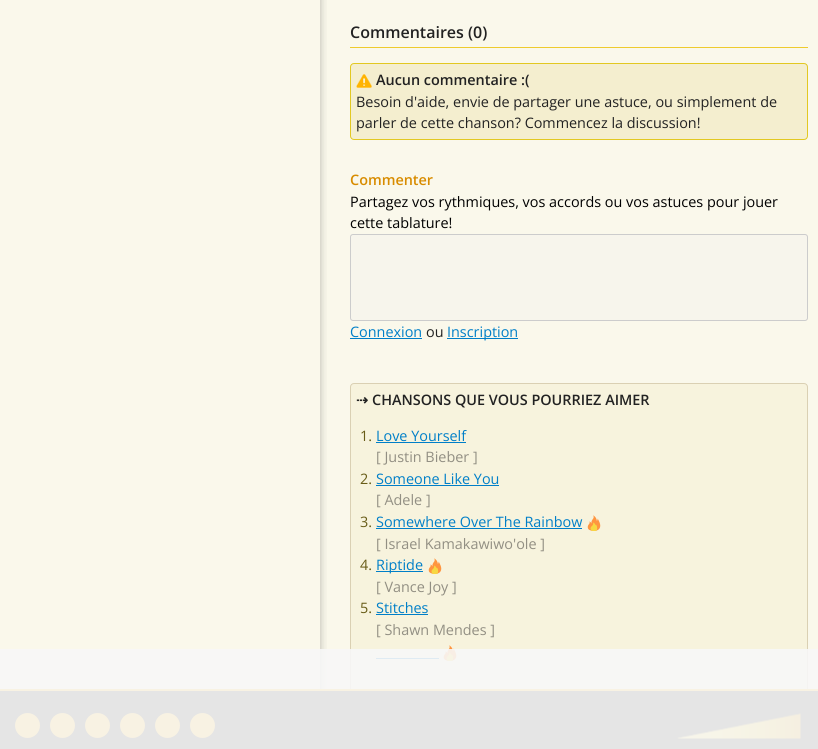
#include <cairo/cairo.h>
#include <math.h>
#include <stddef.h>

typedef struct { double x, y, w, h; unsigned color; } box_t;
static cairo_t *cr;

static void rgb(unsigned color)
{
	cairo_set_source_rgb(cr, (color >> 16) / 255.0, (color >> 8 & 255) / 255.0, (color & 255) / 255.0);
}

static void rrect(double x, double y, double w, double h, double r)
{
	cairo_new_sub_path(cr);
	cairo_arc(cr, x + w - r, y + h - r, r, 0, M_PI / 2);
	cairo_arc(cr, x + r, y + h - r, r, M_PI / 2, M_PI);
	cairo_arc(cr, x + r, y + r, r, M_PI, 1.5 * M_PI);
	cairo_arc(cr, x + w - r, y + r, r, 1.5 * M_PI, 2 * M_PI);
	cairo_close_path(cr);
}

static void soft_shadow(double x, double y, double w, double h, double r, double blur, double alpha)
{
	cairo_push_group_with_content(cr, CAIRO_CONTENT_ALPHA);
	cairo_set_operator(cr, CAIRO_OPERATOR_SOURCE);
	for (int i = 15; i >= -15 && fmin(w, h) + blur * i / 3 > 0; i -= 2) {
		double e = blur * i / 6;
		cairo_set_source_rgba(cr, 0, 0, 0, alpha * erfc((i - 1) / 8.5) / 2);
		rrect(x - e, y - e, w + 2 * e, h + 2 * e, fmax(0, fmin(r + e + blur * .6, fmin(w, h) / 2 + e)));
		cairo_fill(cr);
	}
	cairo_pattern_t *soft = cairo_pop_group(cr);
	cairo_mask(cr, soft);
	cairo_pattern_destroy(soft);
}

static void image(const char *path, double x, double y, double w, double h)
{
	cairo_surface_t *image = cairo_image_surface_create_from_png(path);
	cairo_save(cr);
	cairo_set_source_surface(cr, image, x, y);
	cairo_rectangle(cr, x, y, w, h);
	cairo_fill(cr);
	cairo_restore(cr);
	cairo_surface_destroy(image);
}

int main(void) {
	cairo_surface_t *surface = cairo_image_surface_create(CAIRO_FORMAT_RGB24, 818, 749);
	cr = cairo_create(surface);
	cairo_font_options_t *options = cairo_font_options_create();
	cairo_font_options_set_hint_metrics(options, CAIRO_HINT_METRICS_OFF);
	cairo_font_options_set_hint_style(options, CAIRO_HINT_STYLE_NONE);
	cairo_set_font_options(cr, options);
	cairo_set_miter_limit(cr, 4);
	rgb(0xfaf8eb);
	cairo_paint(cr);
	cairo_save(cr);
	cairo_rectangle(cr, 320, 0, 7, 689);
	cairo_clip(cr);
	rgb(0x333333);
	soft_shadow(18, -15, 300, 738, 0, 5, 0.5);
	cairo_restore(cr);
	rgb(0xeecb2d);
	cairo_rectangle(cr, 350, 47, 458, 1);
	cairo_fill(cr);
	rgb(0xf4eecf);
	rrect(350.5, 63.5, 457, 76, 3.5);
	cairo_fill_preserve(cr);
	rgb(0xe2c822);
	cairo_set_line_width(cr, 1);
	cairo_stroke(cr);
	image("img/1.png", 356, 74, 16, 14);
	rgb(0xf7f5ec);
	rrect(350.5, 234.5, 457, 86, 2.5);
	cairo_fill_preserve(cr);
	rgb(0xcccccc);
	cairo_stroke(cr);
	rgb(0x007fc8);
	cairo_rectangle(cr, 350, 338, 72, 1);
	cairo_fill(cr);
	cairo_rectangle(cr, 447, 338, 71, 1);
	cairo_fill(cr);
	rgb(0xf7f3dd);
	rrect(350.5, 383.5, 457, 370, 3.5);
	cairo_fill_preserve(cr);
	rgb(0xdad0b3);
	cairo_stroke(cr);
	{
		static const box_t items[] = {
			{376, 442, 90, 1, 0x007fc8},
			{376, 485, 123, 1, 0x007fc8},
			{376, 528, 206, 1, 0x007fc8},
		};
		for (size_t i = 0; i < sizeof items / sizeof *items; i++) {
			rgb(items[i].color);
			cairo_rectangle(cr, items[i].x, items[i].y, items[i].w, items[i].h);
			cairo_fill(cr);
		}
	}
	image("img/2.png", 587, 515, 14, 16);
	cairo_rectangle(cr, 376, 571, 47, 1);
	cairo_fill(cr);
	image("img/2.png", 428, 558, 14, 16);
	cairo_rectangle(cr, 376, 614, 52, 1);
	cairo_fill(cr);
	cairo_rectangle(cr, 376, 658, 63, 1);
	cairo_fill(cr);
	image("img/2.png", 443, 645, 14, 16);
	rgb(0x3a3a3a);
	cairo_rectangle(cr, 0, 691, 818, 58);
	cairo_fill(cr);
	rgb(0xfcc02b);
	cairo_rectangle(cr, 0, 689, 818, 2);
	cairo_fill(cr);
	cairo_arc(cr, 27.5, 725.5, 12.5, 0, 2 * M_PI);
	cairo_fill(cr);
	cairo_arc(cr, 62.5, 725.5, 12.5, 0, 2 * M_PI);
	cairo_fill(cr);
	cairo_arc(cr, 97.5, 725.5, 12.5, 0, 2 * M_PI);
	cairo_fill(cr);
	cairo_arc(cr, 132.5, 725.5, 12.5, 0, 2 * M_PI);
	cairo_fill(cr);
	cairo_arc(cr, 167.5, 725.5, 12.5, 0, 2 * M_PI);
	cairo_fill(cr);
	cairo_arc(cr, 202.5, 725.5, 12.5, 0, 2 * M_PI);
	cairo_fill(cr);
	image("img/3.png", 677, 713, 124, 26);
	cairo_set_source_rgba(cr, 0.969, 0.969, 0.969, 0.9);
	cairo_rectangle(cr, 0, 649, 818, 100);
	cairo_fill(cr);
	cairo_select_font_face(cr, "Open Sans SemiBold", CAIRO_FONT_SLANT_NORMAL, CAIRO_FONT_WEIGHT_NORMAL);
	cairo_set_font_size(cr, 16);
	rgb(0x222222);
	cairo_move_to(cr, 350, 38);
	cairo_show_text(cr, "Commentaires (0)");
	cairo_set_font_size(cr, 14.4);
	cairo_move_to(cr, 376, 85);
	cairo_show_text(cr, "Aucun commentaire :(");
	cairo_select_font_face(cr, "Open Sans", CAIRO_FONT_SLANT_NORMAL, CAIRO_FONT_WEIGHT_NORMAL);
	cairo_move_to(cr, 356, 107);
	cairo_show_text(cr, "Besoin d'aide, envie de partager une astuce, ou simplement de");
	cairo_move_to(cr, 356, 128);
	cairo_show_text(cr, "parler de cette chanson? Commencez la discussion!");
	cairo_select_font_face(cr, "Open Sans SemiBold", CAIRO_FONT_SLANT_NORMAL, CAIRO_FONT_WEIGHT_NORMAL);
	rgb(0xd88c00);
	cairo_move_to(cr, 350, 185);
	cairo_show_text(cr, "Commenter");
	cairo_select_font_face(cr, "Open Sans", CAIRO_FONT_SLANT_NORMAL, CAIRO_FONT_WEIGHT_NORMAL);
	rgb(0x000000);
	cairo_move_to(cr, 350, 207);
	cairo_show_text(cr, "Partagez vos rythmiques, vos accords ou vos astuces pour jouer");
	cairo_move_to(cr, 350, 228);
	cairo_show_text(cr, "cette tablature!");
	rgb(0x007fc8);
	cairo_move_to(cr, 350, 337);
	cairo_show_text(cr, "Connexion");
	rgb(0x222222);
	cairo_move_to(cr, 426, 337);
	cairo_show_text(cr, "ou");
	rgb(0x007fc8);
	cairo_move_to(cr, 447, 337);
	cairo_show_text(cr, "Inscription");
	cairo_select_font_face(cr, "DejaVu Sans", CAIRO_FONT_SLANT_NORMAL, CAIRO_FONT_WEIGHT_BOLD);
	rgb(0x222222);
	cairo_move_to(cr, 356, 405);
	cairo_show_text(cr, "⇢");
	cairo_select_font_face(cr, "Open Sans SemiBold", CAIRO_FONT_SLANT_NORMAL, CAIRO_FONT_WEIGHT_NORMAL);
	cairo_move_to(cr, 372, 405);
	cairo_show_text(cr, "CHANSONS QUE VOUS POURRIEZ AIMER");
	cairo_select_font_face(cr, "Open Sans", CAIRO_FONT_SLANT_NORMAL, CAIRO_FONT_WEIGHT_NORMAL);
	rgb(0x685c18);
	cairo_move_to(cr, 360, 441);
	cairo_show_text(cr, "1.");
	rgb(0x007fc8);
	cairo_move_to(cr, 376, 441);
	cairo_show_text(cr, "Love Yourself");
	rgb(0x928f83);
	cairo_move_to(cr, 376, 462);
	cairo_show_text(cr, "[ Justin Bieber ]");
	rgb(0x685c18);
	cairo_move_to(cr, 360, 484);
	cairo_show_text(cr, "2.");
	rgb(0x007fc8);
	cairo_move_to(cr, 376, 484);
	cairo_show_text(cr, "Someone Like You");
	rgb(0x928f83);
	cairo_move_to(cr, 376, 505);
	cairo_show_text(cr, "[ Adele ]");
	rgb(0x685c18);
	cairo_move_to(cr, 360, 527);
	cairo_show_text(cr, "3.");
	rgb(0x007fc8);
	cairo_move_to(cr, 376, 527);
	cairo_show_text(cr, "Somewhere Over The Rainbow");
	rgb(0x928f83);
	cairo_move_to(cr, 376, 549);
	cairo_show_text(cr, "[ Israel Kamakawiwo'ole ]");
	rgb(0x685c18);
	cairo_move_to(cr, 360, 570);
	cairo_show_text(cr, "4.");
	rgb(0x007fc8);
	cairo_move_to(cr, 376, 570);
	cairo_show_text(cr, "Riptide");
	rgb(0x928f83);
	cairo_move_to(cr, 376, 592);
	cairo_show_text(cr, "[ Vance Joy ]");
	rgb(0x685c18);
	cairo_move_to(cr, 360, 613);
	cairo_show_text(cr, "5.");
	rgb(0x007fc8);
	cairo_move_to(cr, 376, 613);
	cairo_show_text(cr, "Stitches");
	rgb(0x928f83);
	cairo_move_to(cr, 376, 635);
	cairo_show_text(cr, "[ Shawn Mendes ]");
	cairo_surface_write_to_png(surface, "page.png");
	cairo_font_options_destroy(options);
	cairo_destroy(cr);
	cairo_surface_destroy(surface);
	return 0;
}
